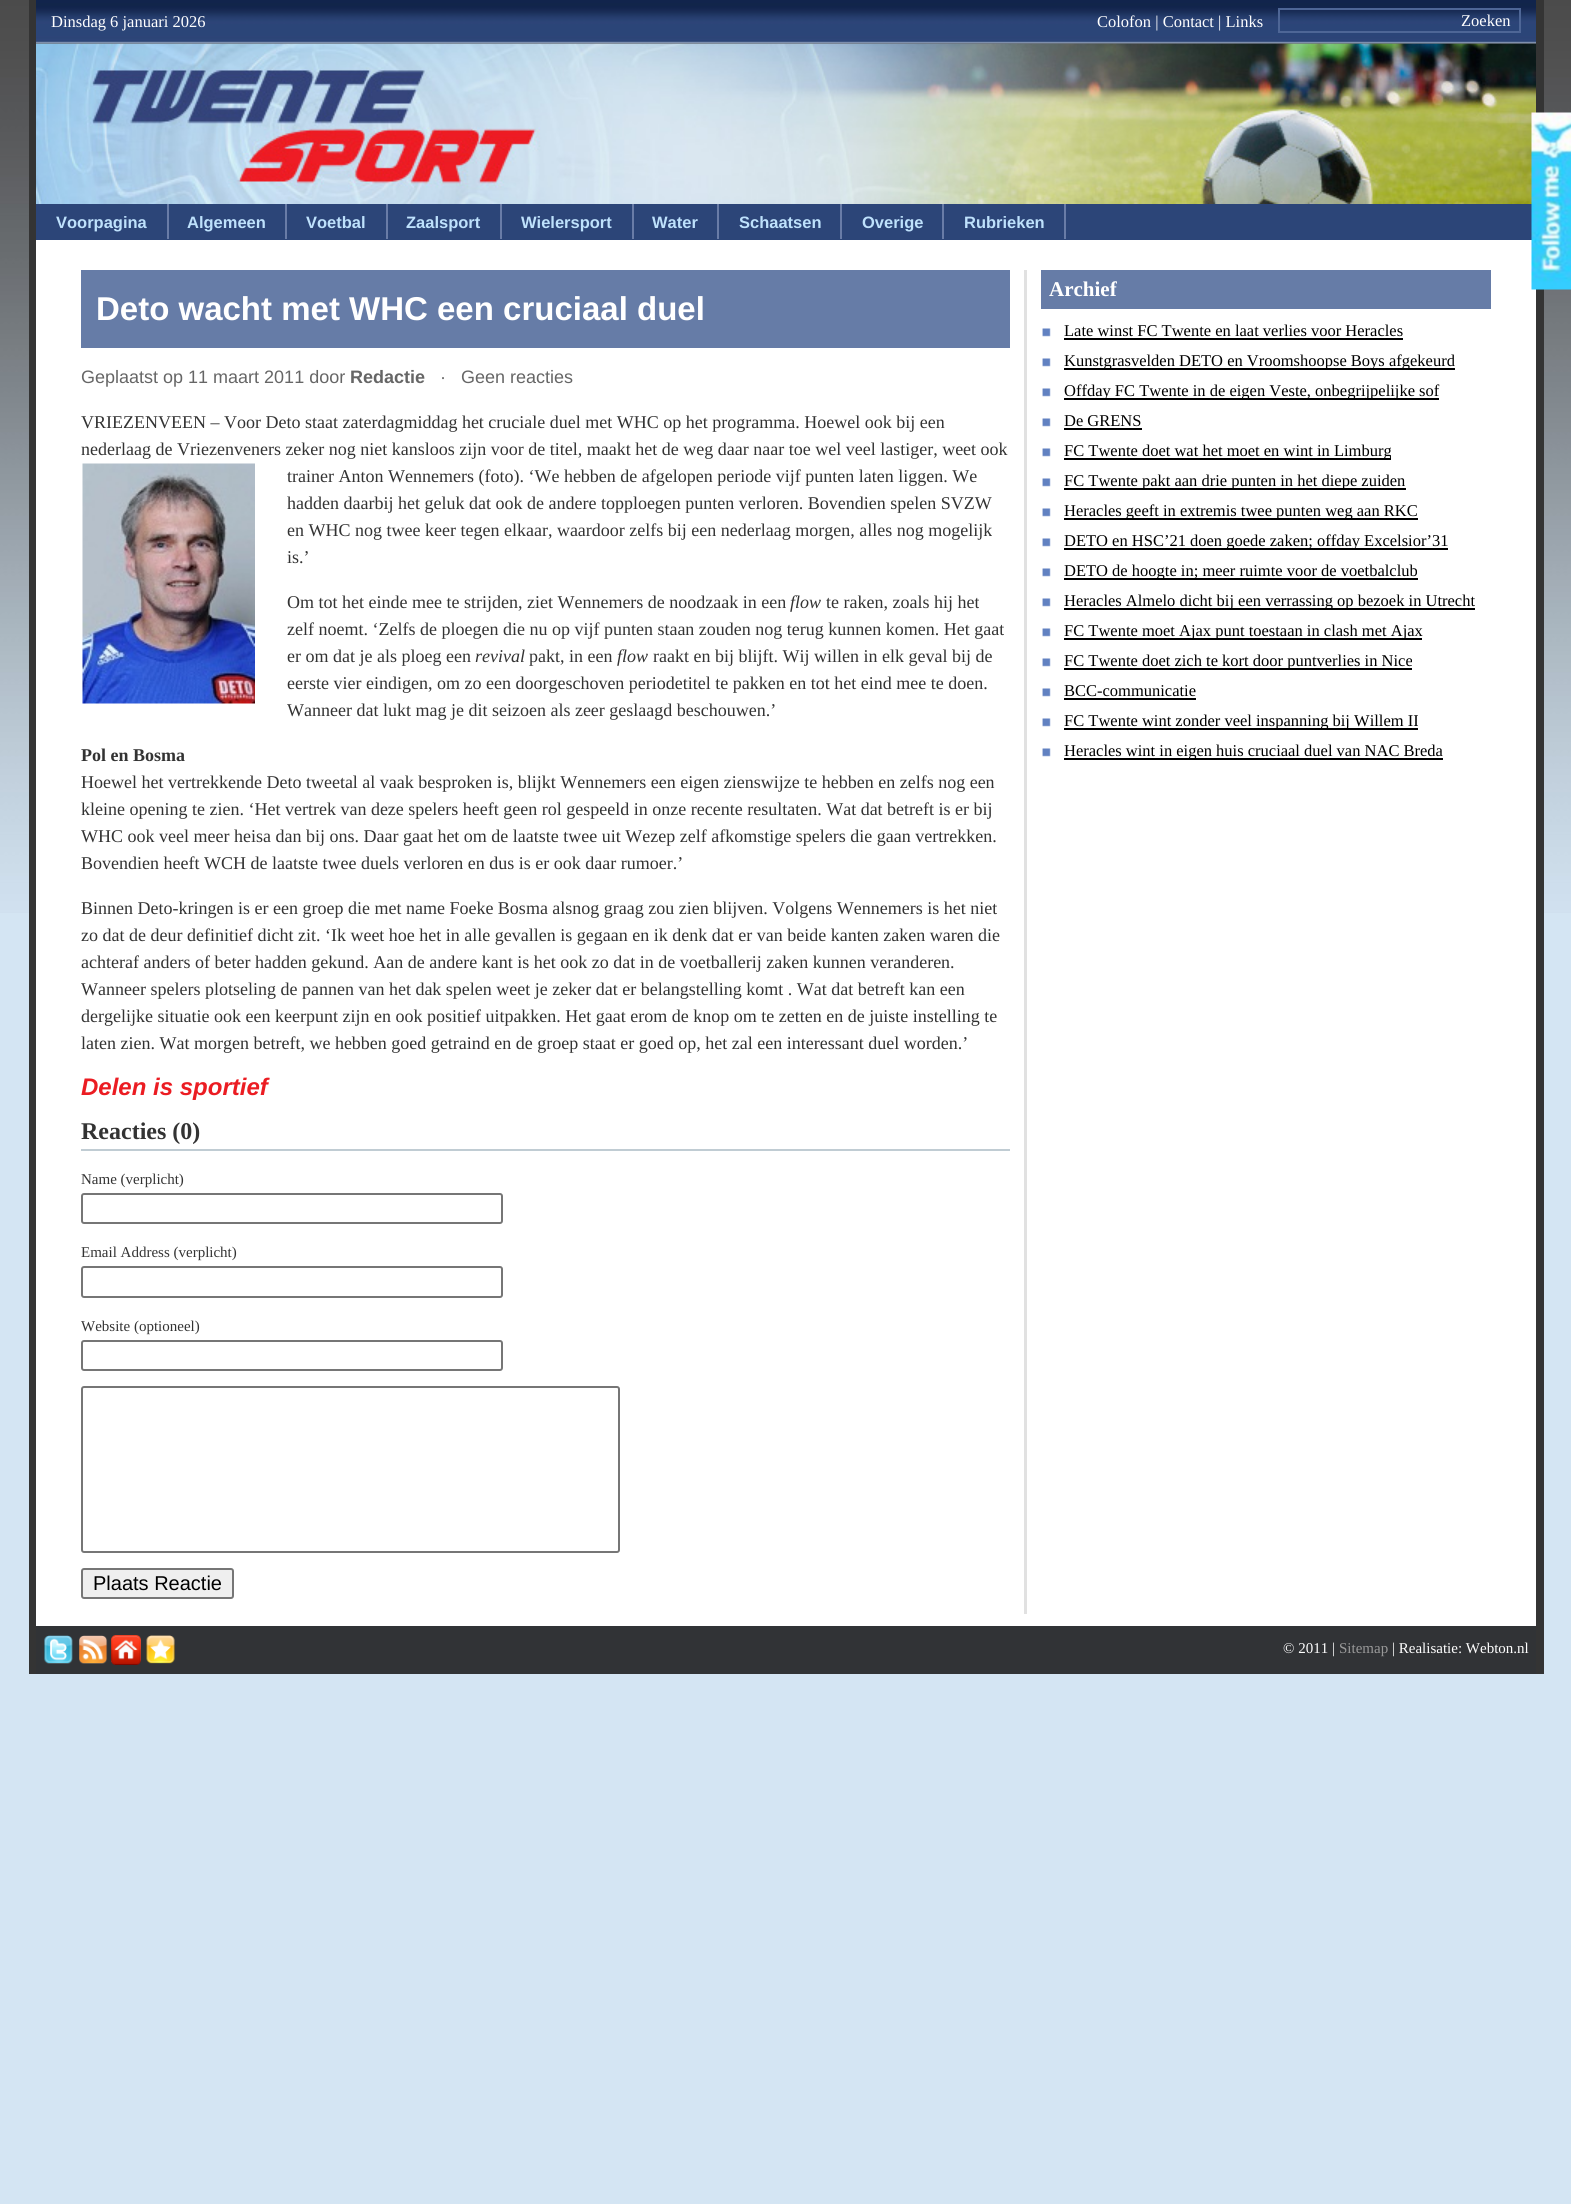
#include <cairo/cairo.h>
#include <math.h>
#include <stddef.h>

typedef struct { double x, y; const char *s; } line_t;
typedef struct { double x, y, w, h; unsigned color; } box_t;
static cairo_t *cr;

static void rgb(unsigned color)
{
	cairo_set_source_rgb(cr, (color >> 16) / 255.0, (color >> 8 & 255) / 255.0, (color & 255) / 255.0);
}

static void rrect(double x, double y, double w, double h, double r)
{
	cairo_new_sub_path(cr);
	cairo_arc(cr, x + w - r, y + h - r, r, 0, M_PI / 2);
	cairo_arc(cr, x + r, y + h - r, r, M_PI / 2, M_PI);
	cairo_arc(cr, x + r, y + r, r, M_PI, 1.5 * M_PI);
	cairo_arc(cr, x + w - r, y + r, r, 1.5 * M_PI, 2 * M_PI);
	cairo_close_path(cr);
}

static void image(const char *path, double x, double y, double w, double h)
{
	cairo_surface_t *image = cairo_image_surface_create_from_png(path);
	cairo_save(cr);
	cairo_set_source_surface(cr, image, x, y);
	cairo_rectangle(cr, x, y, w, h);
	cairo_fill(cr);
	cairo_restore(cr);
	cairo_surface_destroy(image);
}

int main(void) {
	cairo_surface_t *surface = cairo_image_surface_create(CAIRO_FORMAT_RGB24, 1571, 2204);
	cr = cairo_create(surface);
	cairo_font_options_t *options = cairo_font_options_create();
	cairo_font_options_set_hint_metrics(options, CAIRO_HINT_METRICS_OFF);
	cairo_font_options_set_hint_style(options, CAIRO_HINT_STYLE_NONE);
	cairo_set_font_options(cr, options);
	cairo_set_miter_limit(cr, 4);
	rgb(0xd4e5f3);
	cairo_paint(cr);
	image("img/1.png", 0, 0, 1571, 913);
	rgb(0x343434);
	cairo_rectangle(cr, 1536, 0, 8, 113);
	cairo_fill(cr);
	cairo_rectangle(cr, 29, 0, 7, 1674);
	cairo_fill(cr);
	image("img/2.png", 36, 0, 1500, 44);
	cairo_rectangle(cr, 1279, 9, 241, 23);
	rgb(0x4e6696);
	cairo_stroke(cr);
	image("img/3.png", 36, 43, 1500, 161);
	{
		static const box_t items[] = {
			{36, 204, 1496, 36, 0x2c4578},
			{167, 204, 2, 35, 0x697ca7},
			{285, 204, 2, 35, 0x697ca7},
			{386, 204, 2, 35, 0x697ca7},
			{500, 204, 2, 35, 0x697ca7},
			{632, 204, 2, 35, 0x697ca7},
			{717, 204, 2, 35, 0x697ca7},
			{840, 204, 2, 35, 0x697ca7},
			{942, 204, 2, 35, 0x697ca7},
			{1064, 204, 2, 35, 0x697ca7},
			{36, 240, 1500, 1386, 0xffffff},
			{1536, 289, 8, 1385, 0x343434},
		};
		for (size_t i = 0; i < sizeof items / sizeof *items; i++) {
			rgb(items[i].color);
			cairo_rectangle(cr, items[i].x, items[i].y, items[i].w, items[i].h);
			cairo_fill(cr);
		}
	}
	image("img/4.png", 1531, 112, 40, 178);
	rgb(0xe1e1e1);
	cairo_rectangle(cr, 1024, 270, 3, 1344);
	cairo_fill(cr);
	rgb(0x667ca7);
	cairo_rectangle(cr, 81, 270, 929, 78);
	cairo_fill(cr);
	image("img/5.png", 82, 463, 173, 241);
	rgb(0xc0ccd3);
	cairo_rectangle(cr, 81, 1149, 929, 2);
	cairo_fill(cr);
	rrect(82, 1194, 420, 29, 2);
	rgb(0x767676);
	cairo_stroke(cr);
	rrect(82, 1267, 420, 30, 2);
	cairo_stroke(cr);
	rrect(82, 1341, 420, 29, 2);
	cairo_stroke(cr);
	rrect(82, 1387, 537, 165, 2);
	cairo_stroke(cr);
	rgb(0xefefef);
	rrect(82, 1569, 151, 29, 2);
	cairo_fill_preserve(cr);
	rgb(0x767676);
	cairo_stroke(cr);
	rgb(0x667ca7);
	cairo_rectangle(cr, 1041, 270, 450, 39);
	cairo_fill(cr);
	image("img/6.png", 1042, 328, 9, 9);
	rgb(0x000000);
	cairo_rectangle(cr, 1064, 338, 339, 2);
	cairo_fill(cr);
	image("img/6.png", 1042, 358, 9, 9);
	cairo_rectangle(cr, 1064, 368, 391, 2);
	cairo_fill(cr);
	image("img/6.png", 1042, 388, 9, 9);
	cairo_rectangle(cr, 1064, 398, 375, 2);
	cairo_fill(cr);
	image("img/6.png", 1042, 418, 9, 9);
	cairo_rectangle(cr, 1064, 428, 78, 2);
	cairo_fill(cr);
	image("img/6.png", 1042, 448, 9, 9);
	cairo_rectangle(cr, 1064, 458, 327, 2);
	cairo_fill(cr);
	image("img/6.png", 1042, 478, 9, 9);
	cairo_rectangle(cr, 1064, 488, 342, 2);
	cairo_fill(cr);
	image("img/6.png", 1042, 508, 9, 9);
	cairo_rectangle(cr, 1064, 518, 354, 2);
	cairo_fill(cr);
	image("img/6.png", 1042, 538, 9, 9);
	cairo_rectangle(cr, 1064, 548, 384, 2);
	cairo_fill(cr);
	image("img/6.png", 1042, 568, 9, 9);
	cairo_rectangle(cr, 1064, 578, 354, 2);
	cairo_fill(cr);
	image("img/6.png", 1042, 598, 9, 9);
	cairo_rectangle(cr, 1064, 608, 411, 2);
	cairo_fill(cr);
	image("img/6.png", 1042, 628, 9, 9);
	cairo_rectangle(cr, 1064, 638, 358, 2);
	cairo_fill(cr);
	image("img/6.png", 1042, 658, 9, 9);
	cairo_rectangle(cr, 1064, 668, 348, 2);
	cairo_fill(cr);
	image("img/6.png", 1042, 688, 9, 9);
	cairo_rectangle(cr, 1064, 698, 132, 2);
	cairo_fill(cr);
	image("img/6.png", 1042, 718, 9, 9);
	cairo_rectangle(cr, 1064, 728, 354, 2);
	cairo_fill(cr);
	image("img/6.png", 1042, 748, 9, 9);
	cairo_rectangle(cr, 1064, 758, 379, 2);
	cairo_fill(cr);
	rgb(0x313336);
	cairo_rectangle(cr, 36, 1626, 1500, 48);
	cairo_fill(cr);
	image("img/7.png", 44, 1635, 29, 29);
	image("img/8.png", 79, 1635, 29, 29);
	image("img/9.png", 111, 1635, 30, 30);
	image("img/10.png", 146, 1635, 29, 29);
	cairo_select_font_face(cr, "Liberation Serif", CAIRO_FONT_SLANT_NORMAL, CAIRO_FONT_WEIGHT_NORMAL);
	cairo_set_font_size(cr, 16.5);
	rgb(0xffffff);
	{
		static const line_t items[] = {
			{51, 27, "Dinsdag 6 januari 2026"},
			{1097, 27, "Colofon | Contact | Links"},
			{1461, 26, "Zoeken"},
		};
		for (size_t i = 0; i < sizeof items / sizeof *items; i++) {
			cairo_move_to(cr, items[i].x, items[i].y);
			cairo_show_text(cr, items[i].s);
		}
	}
	cairo_select_font_face(cr, "Liberation Sans", CAIRO_FONT_SLANT_NORMAL, CAIRO_FONT_WEIGHT_BOLD);
	rgb(0xbee1fc);
	{
		static const line_t items[] = {
			{56, 228, "Voorpagina"},
			{187, 228, "Algemeen"},
			{306, 228, "Voetbal"},
			{406, 228, "Zaalsport"},
			{521, 228, "Wielersport"},
			{652, 228, "Water"},
			{739, 228, "Schaatsen"},
			{862, 228, "Overige"},
			{964, 228, "Rubrieken"},
		};
		for (size_t i = 0; i < sizeof items / sizeof *items; i++) {
			cairo_move_to(cr, items[i].x, items[i].y);
			cairo_show_text(cr, items[i].s);
		}
	}
	cairo_set_font_size(cr, 33);
	rgb(0xffffff);
	cairo_move_to(cr, 96, 320);
	cairo_show_text(cr, "Deto wacht met WHC een cruciaal duel");
	cairo_select_font_face(cr, "Liberation Sans", CAIRO_FONT_SLANT_NORMAL, CAIRO_FONT_WEIGHT_NORMAL);
	cairo_set_font_size(cr, 18);
	rgb(0x666666);
	cairo_move_to(cr, 81, 383);
	cairo_show_text(cr, "Geplaatst op 11 maart 2011 door");
	cairo_select_font_face(cr, "Liberation Sans", CAIRO_FONT_SLANT_NORMAL, CAIRO_FONT_WEIGHT_BOLD);
	cairo_move_to(cr, 350, 383);
	cairo_show_text(cr, "Redactie");
	cairo_select_font_face(cr, "Liberation Sans", CAIRO_FONT_SLANT_NORMAL, CAIRO_FONT_WEIGHT_NORMAL);
	cairo_move_to(cr, 440, 383);
	cairo_show_text(cr, "·   Geen reacties");
	cairo_select_font_face(cr, "Liberation Serif", CAIRO_FONT_SLANT_NORMAL, CAIRO_FONT_WEIGHT_NORMAL);
	rgb(0x333333);
	{
		static const line_t items[] = {
			{81, 428, "VRIEZENVEEN – Voor Deto staat zaterdagmiddag het cruciale duel met WHC op het programma. Hoewel ook bij een"},
			{81, 455, "nederlaag de Vriezenveners zeker nog niet kansloos zijn voor de titel, maakt het de weg daar naar toe wel veel lastiger, weet ook"},
			{287, 482, "trainer Anton Wennemers (foto). ‘We hebben de afgelopen periode vijf punten laten liggen. We"},
			{287, 509, "hadden daarbij het geluk dat ook de andere topploegen punten verloren. Bovendien spelen SVZW"},
			{287, 536, "en WHC nog twee keer tegen elkaar, waardoor zelfs bij een nederlaag morgen, alles nog mogelijk"},
			{287, 563, "is.’"},
			{287, 608, "Om tot het einde mee te strijden, ziet Wennemers de noodzaak in een"},
		};
		for (size_t i = 0; i < sizeof items / sizeof *items; i++) {
			cairo_move_to(cr, items[i].x, items[i].y);
			cairo_show_text(cr, items[i].s);
		}
	}
	cairo_select_font_face(cr, "Liberation Serif", CAIRO_FONT_SLANT_ITALIC, CAIRO_FONT_WEIGHT_NORMAL);
	cairo_move_to(cr, 790, 608);
	cairo_show_text(cr, "flow");
	cairo_select_font_face(cr, "Liberation Serif", CAIRO_FONT_SLANT_NORMAL, CAIRO_FONT_WEIGHT_NORMAL);
	{
		static const line_t items[] = {
			{826, 608, "te raken, zoals hij het"},
			{287, 635, "zelf noemt. ‘Zelfs de ploegen die nu op vijf punten staan zouden nog terug kunnen komen. Het gaat"},
			{287, 662, "er om dat je als ploeg een"},
		};
		for (size_t i = 0; i < sizeof items / sizeof *items; i++) {
			cairo_move_to(cr, items[i].x, items[i].y);
			cairo_show_text(cr, items[i].s);
		}
	}
	cairo_select_font_face(cr, "Liberation Serif", CAIRO_FONT_SLANT_ITALIC, CAIRO_FONT_WEIGHT_NORMAL);
	cairo_move_to(cr, 475, 662);
	cairo_show_text(cr, "revival");
	cairo_select_font_face(cr, "Liberation Serif", CAIRO_FONT_SLANT_NORMAL, CAIRO_FONT_WEIGHT_NORMAL);
	cairo_move_to(cr, 529, 662);
	cairo_show_text(cr, "pakt, in een");
	cairo_select_font_face(cr, "Liberation Serif", CAIRO_FONT_SLANT_ITALIC, CAIRO_FONT_WEIGHT_NORMAL);
	cairo_move_to(cr, 617, 662);
	cairo_show_text(cr, "flow");
	cairo_select_font_face(cr, "Liberation Serif", CAIRO_FONT_SLANT_NORMAL, CAIRO_FONT_WEIGHT_NORMAL);
	{
		static const line_t items[] = {
			{653, 662, "raakt en bij blijft. Wij willen in elk geval bij de"},
			{287, 689, "eerste vier eindigen, om zo een doorgeschoven periodetitel te pakken en tot het eind mee te doen."},
			{287, 716, "Wanneer dat lukt mag je dit seizoen als zeer geslaagd beschouwen.’"},
		};
		for (size_t i = 0; i < sizeof items / sizeof *items; i++) {
			cairo_move_to(cr, items[i].x, items[i].y);
			cairo_show_text(cr, items[i].s);
		}
	}
	cairo_select_font_face(cr, "Liberation Serif", CAIRO_FONT_SLANT_NORMAL, CAIRO_FONT_WEIGHT_BOLD);
	cairo_move_to(cr, 81, 761);
	cairo_show_text(cr, "Pol en Bosma");
	cairo_select_font_face(cr, "Liberation Serif", CAIRO_FONT_SLANT_NORMAL, CAIRO_FONT_WEIGHT_NORMAL);
	{
		static const line_t items[] = {
			{81, 788, "Hoewel het vertrekkende Deto tweetal al vaak besproken is, blijkt Wennemers een eigen zienswijze te hebben en zelfs nog een"},
			{81, 815, "kleine opening te zien. ‘Het vertrek van deze spelers heeft geen rol gespeeld in onze recente resultaten. Wat dat betreft is er bij"},
			{81, 842, "WHC ook veel meer heisa dan bij ons. Daar gaat het om de laatste twee uit Wezep zelf afkomstige spelers die gaan vertrekken."},
			{81, 869, "Bovendien heeft WCH de laatste twee duels verloren en dus is er ook daar rumoer.’"},
			{81, 914, "Binnen Deto-kringen is er een groep die met name Foeke Bosma alsnog graag zou zien blijven. Volgens Wennemers is het niet"},
			{81, 941, "zo dat de deur definitief dicht zit. ‘Ik weet hoe het in alle gevallen is gegaan en ik denk dat er van beide kanten zaken waren die"},
			{81, 968, "achteraf anders of beter hadden gekund. Aan de andere kant is het ook zo dat in de voetballerij zaken kunnen veranderen."},
			{81, 995, "Wanneer spelers plotseling de pannen van het dak spelen weet je zeker dat er belangstelling komt . Wat dat betreft kan een"},
			{81, 1022, "dergelijke situatie ook een keerpunt zijn en ook positief uitpakken. Het gaat erom de knop om te zetten en de juiste instelling te"},
			{81, 1049, "laten zien. Wat morgen betreft, we hebben goed getraind en de groep staat er goed op, het zal een interessant duel worden.’"},
		};
		for (size_t i = 0; i < sizeof items / sizeof *items; i++) {
			cairo_move_to(cr, items[i].x, items[i].y);
			cairo_show_text(cr, items[i].s);
		}
	}
	cairo_select_font_face(cr, "Liberation Sans", CAIRO_FONT_SLANT_ITALIC, CAIRO_FONT_WEIGHT_BOLD);
	cairo_set_font_size(cr, 24);
	rgb(0xeb1c22);
	cairo_move_to(cr, 81, 1095);
	cairo_show_text(cr, "Delen is sportief");
	cairo_select_font_face(cr, "Liberation Serif", CAIRO_FONT_SLANT_NORMAL, CAIRO_FONT_WEIGHT_BOLD);
	rgb(0x333333);
	cairo_move_to(cr, 81, 1139);
	cairo_show_text(cr, "Reacties (0)");
	cairo_select_font_face(cr, "Liberation Serif", CAIRO_FONT_SLANT_NORMAL, CAIRO_FONT_WEIGHT_NORMAL);
	cairo_set_font_size(cr, 15);
	{
		static const line_t items[] = {
			{81, 1184, "Name (verplicht)"},
			{81, 1257, "Email Address (verplicht)"},
			{81, 1331, "Website (optioneel)"},
		};
		for (size_t i = 0; i < sizeof items / sizeof *items; i++) {
			cairo_move_to(cr, items[i].x, items[i].y);
			cairo_show_text(cr, items[i].s);
		}
	}
	cairo_select_font_face(cr, "Liberation Sans", CAIRO_FONT_SLANT_NORMAL, CAIRO_FONT_WEIGHT_NORMAL);
	cairo_set_font_size(cr, 20);
	rgb(0x000000);
	cairo_move_to(cr, 93, 1590);
	cairo_show_text(cr, "Plaats Reactie");
	cairo_select_font_face(cr, "Liberation Serif", CAIRO_FONT_SLANT_NORMAL, CAIRO_FONT_WEIGHT_BOLD);
	cairo_set_font_size(cr, 21);
	rgb(0xffffff);
	cairo_move_to(cr, 1049, 296);
	cairo_show_text(cr, "Archief");
	cairo_select_font_face(cr, "Liberation Serif", CAIRO_FONT_SLANT_NORMAL, CAIRO_FONT_WEIGHT_NORMAL);
	cairo_set_font_size(cr, 16.5);
	rgb(0x000000);
	{
		static const line_t items[] = {
			{1064, 336, "Late winst FC Twente en laat verlies voor Heracles"},
			{1064, 366, "Kunstgrasvelden DETO en Vroomshoopse Boys afgekeurd"},
			{1064, 396, "Offday FC Twente in de eigen Veste, onbegrijpelijke sof"},
			{1064, 426, "De GRENS"},
			{1064, 456, "FC Twente doet wat het moet en wint in Limburg"},
			{1064, 486, "FC Twente pakt aan drie punten in het diepe zuiden"},
			{1064, 516, "Heracles geeft in extremis twee punten weg aan RKC"},
			{1064, 546, "DETO en HSC’21 doen goede zaken; offday Excelsior’31"},
			{1064, 576, "DETO de hoogte in; meer ruimte voor de voetbalclub"},
			{1064, 606, "Heracles Almelo dicht bij een verrassing op bezoek in Utrecht"},
			{1064, 636, "FC Twente moet Ajax punt toestaan in clash met Ajax"},
			{1064, 666, "FC Twente doet zich te kort door puntverlies in Nice"},
			{1064, 696, "BCC-communicatie"},
			{1064, 726, "FC Twente wint zonder veel inspanning bij Willem II"},
			{1064, 756, "Heracles wint in eigen huis cruciaal duel van NAC Breda"},
		};
		for (size_t i = 0; i < sizeof items / sizeof *items; i++) {
			cairo_move_to(cr, items[i].x, items[i].y);
			cairo_show_text(cr, items[i].s);
		}
	}
	cairo_set_font_size(cr, 15);
	rgb(0xffffff);
	cairo_move_to(cr, 1283, 1653);
	cairo_show_text(cr, "© 2011 |");
	rgb(0x999999);
	cairo_move_to(cr, 1339, 1653);
	cairo_show_text(cr, "Sitemap");
	rgb(0xffffff);
	cairo_move_to(cr, 1392, 1653);
	cairo_show_text(cr, "| Realisatie: Webton.nl");
	cairo_surface_write_to_png(surface, "page.png");
	cairo_font_options_destroy(options);
	cairo_destroy(cr);
	cairo_surface_destroy(surface);
	return 0;
}
